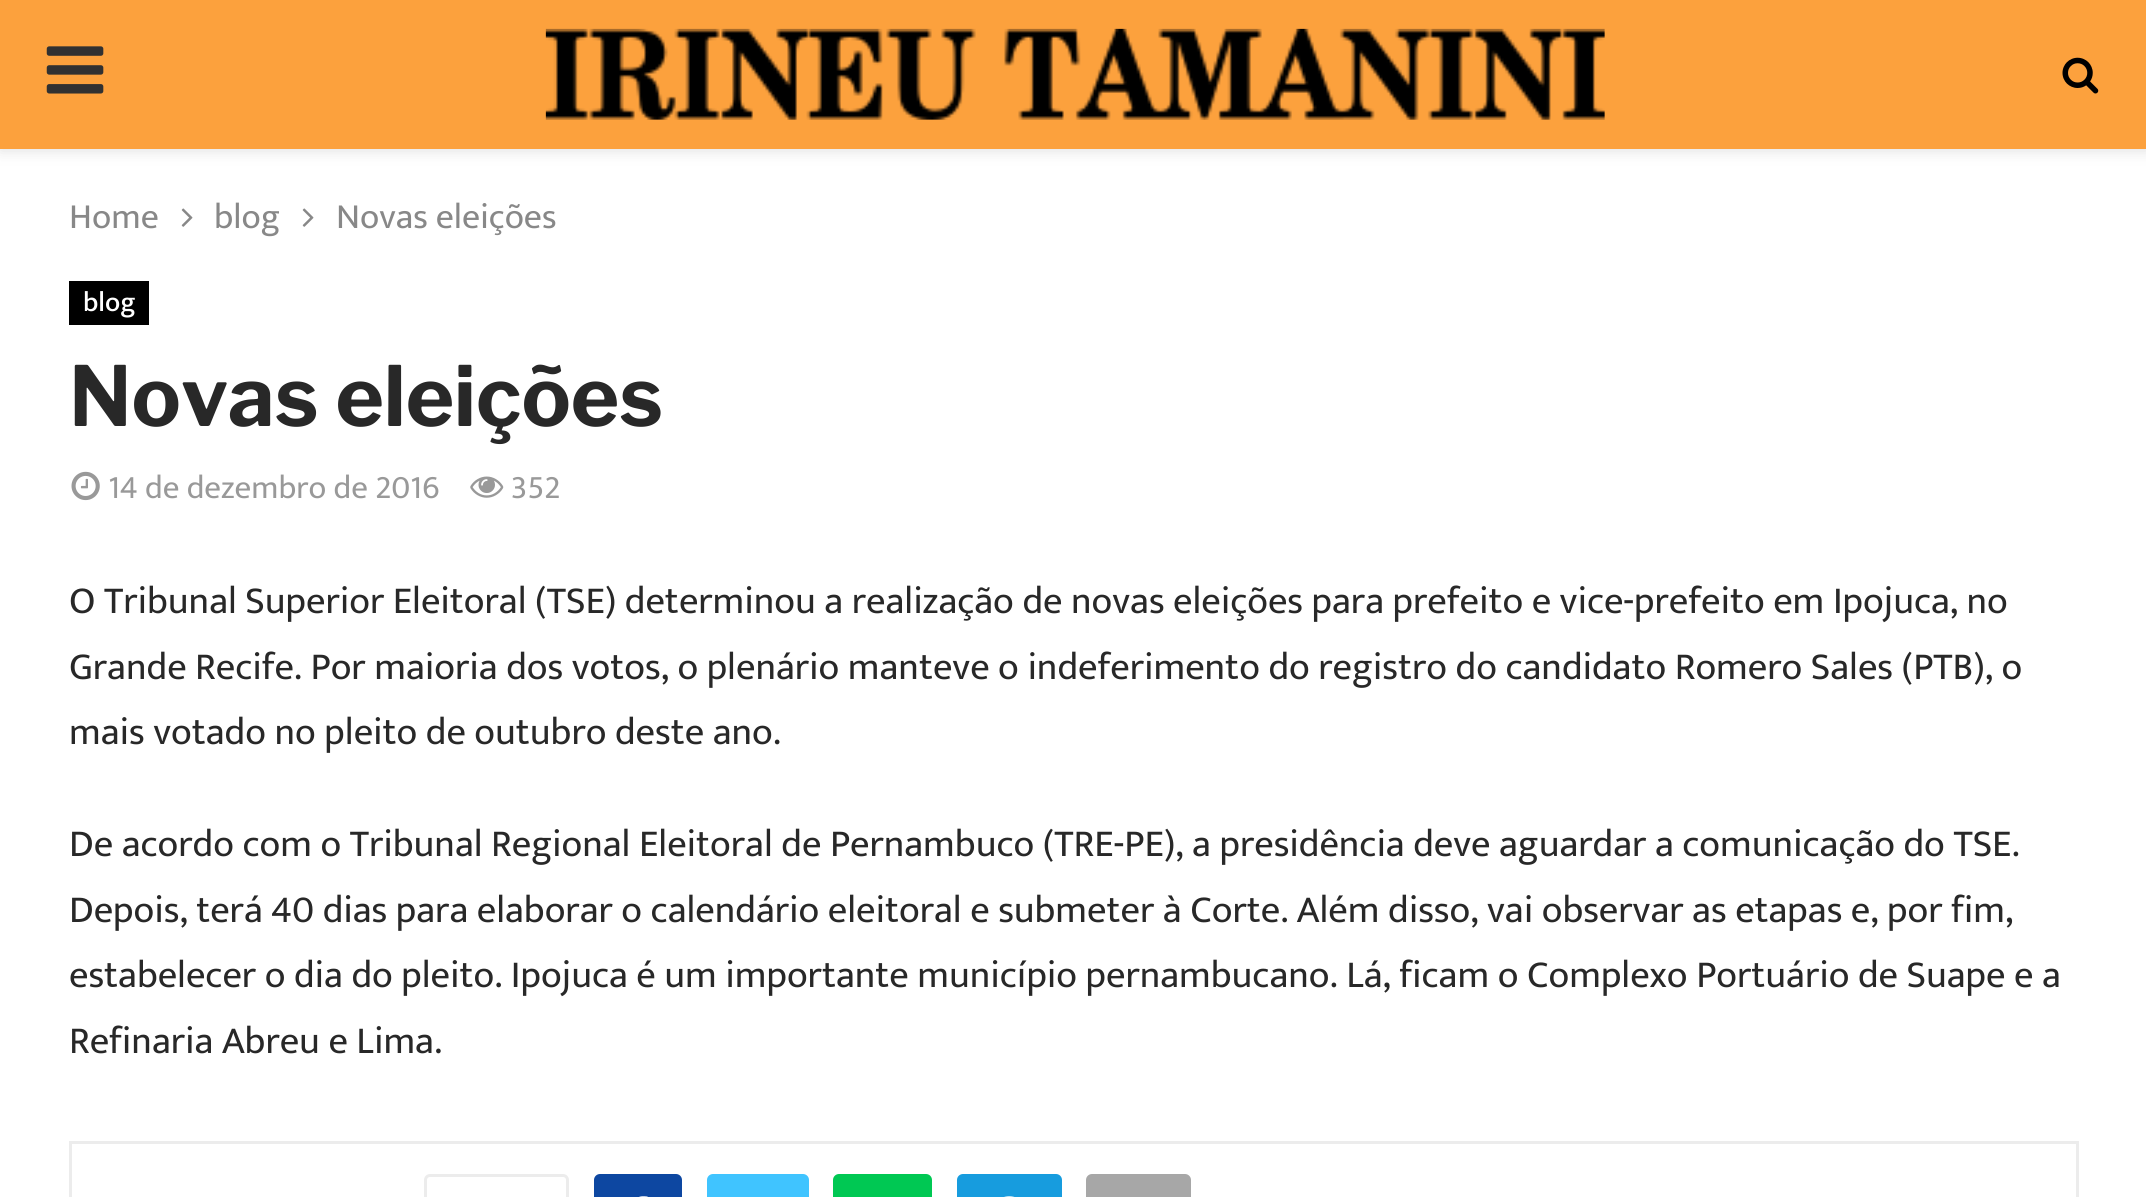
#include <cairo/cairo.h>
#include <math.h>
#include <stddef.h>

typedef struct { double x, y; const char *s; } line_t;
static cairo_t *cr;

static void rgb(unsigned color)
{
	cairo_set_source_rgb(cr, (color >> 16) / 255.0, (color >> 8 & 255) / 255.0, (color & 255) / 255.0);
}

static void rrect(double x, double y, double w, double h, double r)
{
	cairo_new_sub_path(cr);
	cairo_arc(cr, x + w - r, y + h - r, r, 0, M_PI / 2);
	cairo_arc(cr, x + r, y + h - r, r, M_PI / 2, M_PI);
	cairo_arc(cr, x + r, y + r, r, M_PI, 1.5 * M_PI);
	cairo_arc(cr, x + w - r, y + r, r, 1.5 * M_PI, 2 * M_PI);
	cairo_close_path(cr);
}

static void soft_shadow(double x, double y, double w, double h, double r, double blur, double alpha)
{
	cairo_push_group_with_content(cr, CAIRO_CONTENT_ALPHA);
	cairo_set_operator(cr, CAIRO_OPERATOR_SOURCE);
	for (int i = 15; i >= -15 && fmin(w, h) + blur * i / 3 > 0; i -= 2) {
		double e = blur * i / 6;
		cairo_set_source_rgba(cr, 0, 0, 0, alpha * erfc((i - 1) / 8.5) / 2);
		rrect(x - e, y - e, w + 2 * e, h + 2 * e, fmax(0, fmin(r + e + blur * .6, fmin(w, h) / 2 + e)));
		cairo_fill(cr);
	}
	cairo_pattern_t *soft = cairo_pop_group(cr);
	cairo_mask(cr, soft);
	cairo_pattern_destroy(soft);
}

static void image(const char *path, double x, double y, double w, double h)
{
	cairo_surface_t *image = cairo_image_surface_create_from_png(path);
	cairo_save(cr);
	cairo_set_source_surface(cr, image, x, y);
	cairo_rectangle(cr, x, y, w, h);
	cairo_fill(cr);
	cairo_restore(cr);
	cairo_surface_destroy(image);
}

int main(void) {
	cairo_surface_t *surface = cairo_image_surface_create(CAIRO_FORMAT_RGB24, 2146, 1197);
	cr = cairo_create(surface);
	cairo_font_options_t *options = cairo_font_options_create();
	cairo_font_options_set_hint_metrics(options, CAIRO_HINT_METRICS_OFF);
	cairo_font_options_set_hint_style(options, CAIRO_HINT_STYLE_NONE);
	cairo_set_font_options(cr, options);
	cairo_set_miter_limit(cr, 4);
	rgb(0xffffff);
	cairo_paint(cr);
	rgb(0xbebebe);
	soft_shadow(0, 3, 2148, 148, 0, 7, 0.46);
	rgb(0xfca13d);
	cairo_rectangle(cr, 0, 0, 2146, 149);
	cairo_fill(cr);
	image("img/1.png", 46, 46, 58, 48);
	image("img/2.png", 545, 28, 1060, 92);
	image("img/3.png", 2062, 57, 37, 37);
	image("img/4.png", 181, 208, 12, 19);
	image("img/4.png", 302, 208, 12, 19);
	rgb(0x000000);
	cairo_rectangle(cr, 69, 281, 80, 44);
	cairo_fill(cr);
	image("img/5.png", 71, 471, 29, 30);
	image("img/6.png", 470, 476, 34, 22);
	cairo_rectangle(cr, 70.5, 1142.5, 2007, 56);
	rgb(0xececec);
	cairo_set_line_width(cr, 3);
	cairo_stroke(cr);
	rrect(425.5, 1175.5, 142, 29, 4.5);
	cairo_stroke(cr);
	rgb(0x0d47a1);
	rrect(594, 1174, 88, 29, 6);
	cairo_fill(cr);
	image("img/7.png", 639, 1196, 9, 1);
	rgb(0x40c4ff);
	rrect(707, 1174, 102, 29, 6);
	cairo_fill(cr);
	rgb(0x00c853);
	rrect(833, 1174, 99, 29, 6);
	cairo_fill(cr);
	rgb(0x179cde);
	rrect(957, 1174, 105, 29, 6);
	cairo_fill(cr);
	image("img/8.png", 1004, 1196, 11, 1);
	rgb(0xa7a7a7);
	rrect(1086, 1174, 105, 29, 6);
	cairo_fill(cr);
	cairo_select_font_face(cr, "Mukta Vaani", CAIRO_FONT_SLANT_NORMAL, CAIRO_FONT_WEIGHT_NORMAL);
	cairo_set_font_size(cr, 35.75);
	rgb(0x888888);
	{
		static const line_t items[] = {
			{69, 228, "Home"},
			{214, 228, "blog"},
			{336, 228, "Novas eleições"},
		};
		for (size_t i = 0; i < sizeof items / sizeof *items; i++) {
			cairo_move_to(cr, items[i].x, items[i].y);
			cairo_show_text(cr, items[i].s);
		}
	}
	cairo_select_font_face(cr, "Mukta Vaani Medium", CAIRO_FONT_SLANT_NORMAL, CAIRO_FONT_WEIGHT_NORMAL);
	cairo_set_font_size(cr, 28);
	rgb(0xffffff);
	cairo_move_to(cr, 83, 311);
	cairo_show_text(cr, "blog");
	cairo_select_font_face(cr, "Libre Franklin", CAIRO_FONT_SLANT_NORMAL, CAIRO_FONT_WEIGHT_BOLD);
	cairo_set_font_size(cr, 82.5);
	rgb(0x282828);
	cairo_move_to(cr, 69, 426);
	cairo_show_text(cr, "Novas eleições");
	cairo_select_font_face(cr, "Mukta Vaani", CAIRO_FONT_SLANT_NORMAL, CAIRO_FONT_WEIGHT_NORMAL);
	cairo_set_font_size(cr, 33);
	rgb(0x999999);
	cairo_move_to(cr, 108, 498);
	cairo_show_text(cr, "14 de dezembro de 2016");
	cairo_move_to(cr, 511, 498);
	cairo_show_text(cr, "352");
	cairo_set_font_size(cr, 38.5);
	rgb(0x282828);
	{
		static const line_t items[] = {
			{69, 613, "O Tribunal Superior Eleitoral (TSE) determinou a realização de novas eleições para prefeito e vice-prefeito em Ipojuca, no"},
			{69, 679, "Grande Recife. Por maioria dos votos, o plenário manteve o indeferimento do registro do candidato Romero Sales (PTB), o"},
			{69, 744, "mais votado no pleito de outubro deste ano."},
			{69, 856, "De acordo com o Tribunal Regional Eleitoral de Pernambuco (TRE-PE), a presidência deve aguardar a comunicação do TSE."},
			{69, 922, "Depois, terá 40 dias para elaborar o calendário eleitoral e submeter à Corte. Além disso, vai observar as etapas e, por fim,"},
			{69, 987, "estabelecer o dia do pleito. Ipojuca é um importante município pernambucano. Lá, ficam o Complexo Portuário de Suape e a"},
			{69, 1053, "Refinaria Abreu e Lima."},
		};
		for (size_t i = 0; i < sizeof items / sizeof *items; i++) {
			cairo_move_to(cr, items[i].x, items[i].y);
			cairo_show_text(cr, items[i].s);
		}
	}
	cairo_surface_write_to_png(surface, "page.png");
	cairo_font_options_destroy(options);
	cairo_destroy(cr);
	cairo_surface_destroy(surface);
	return 0;
}
